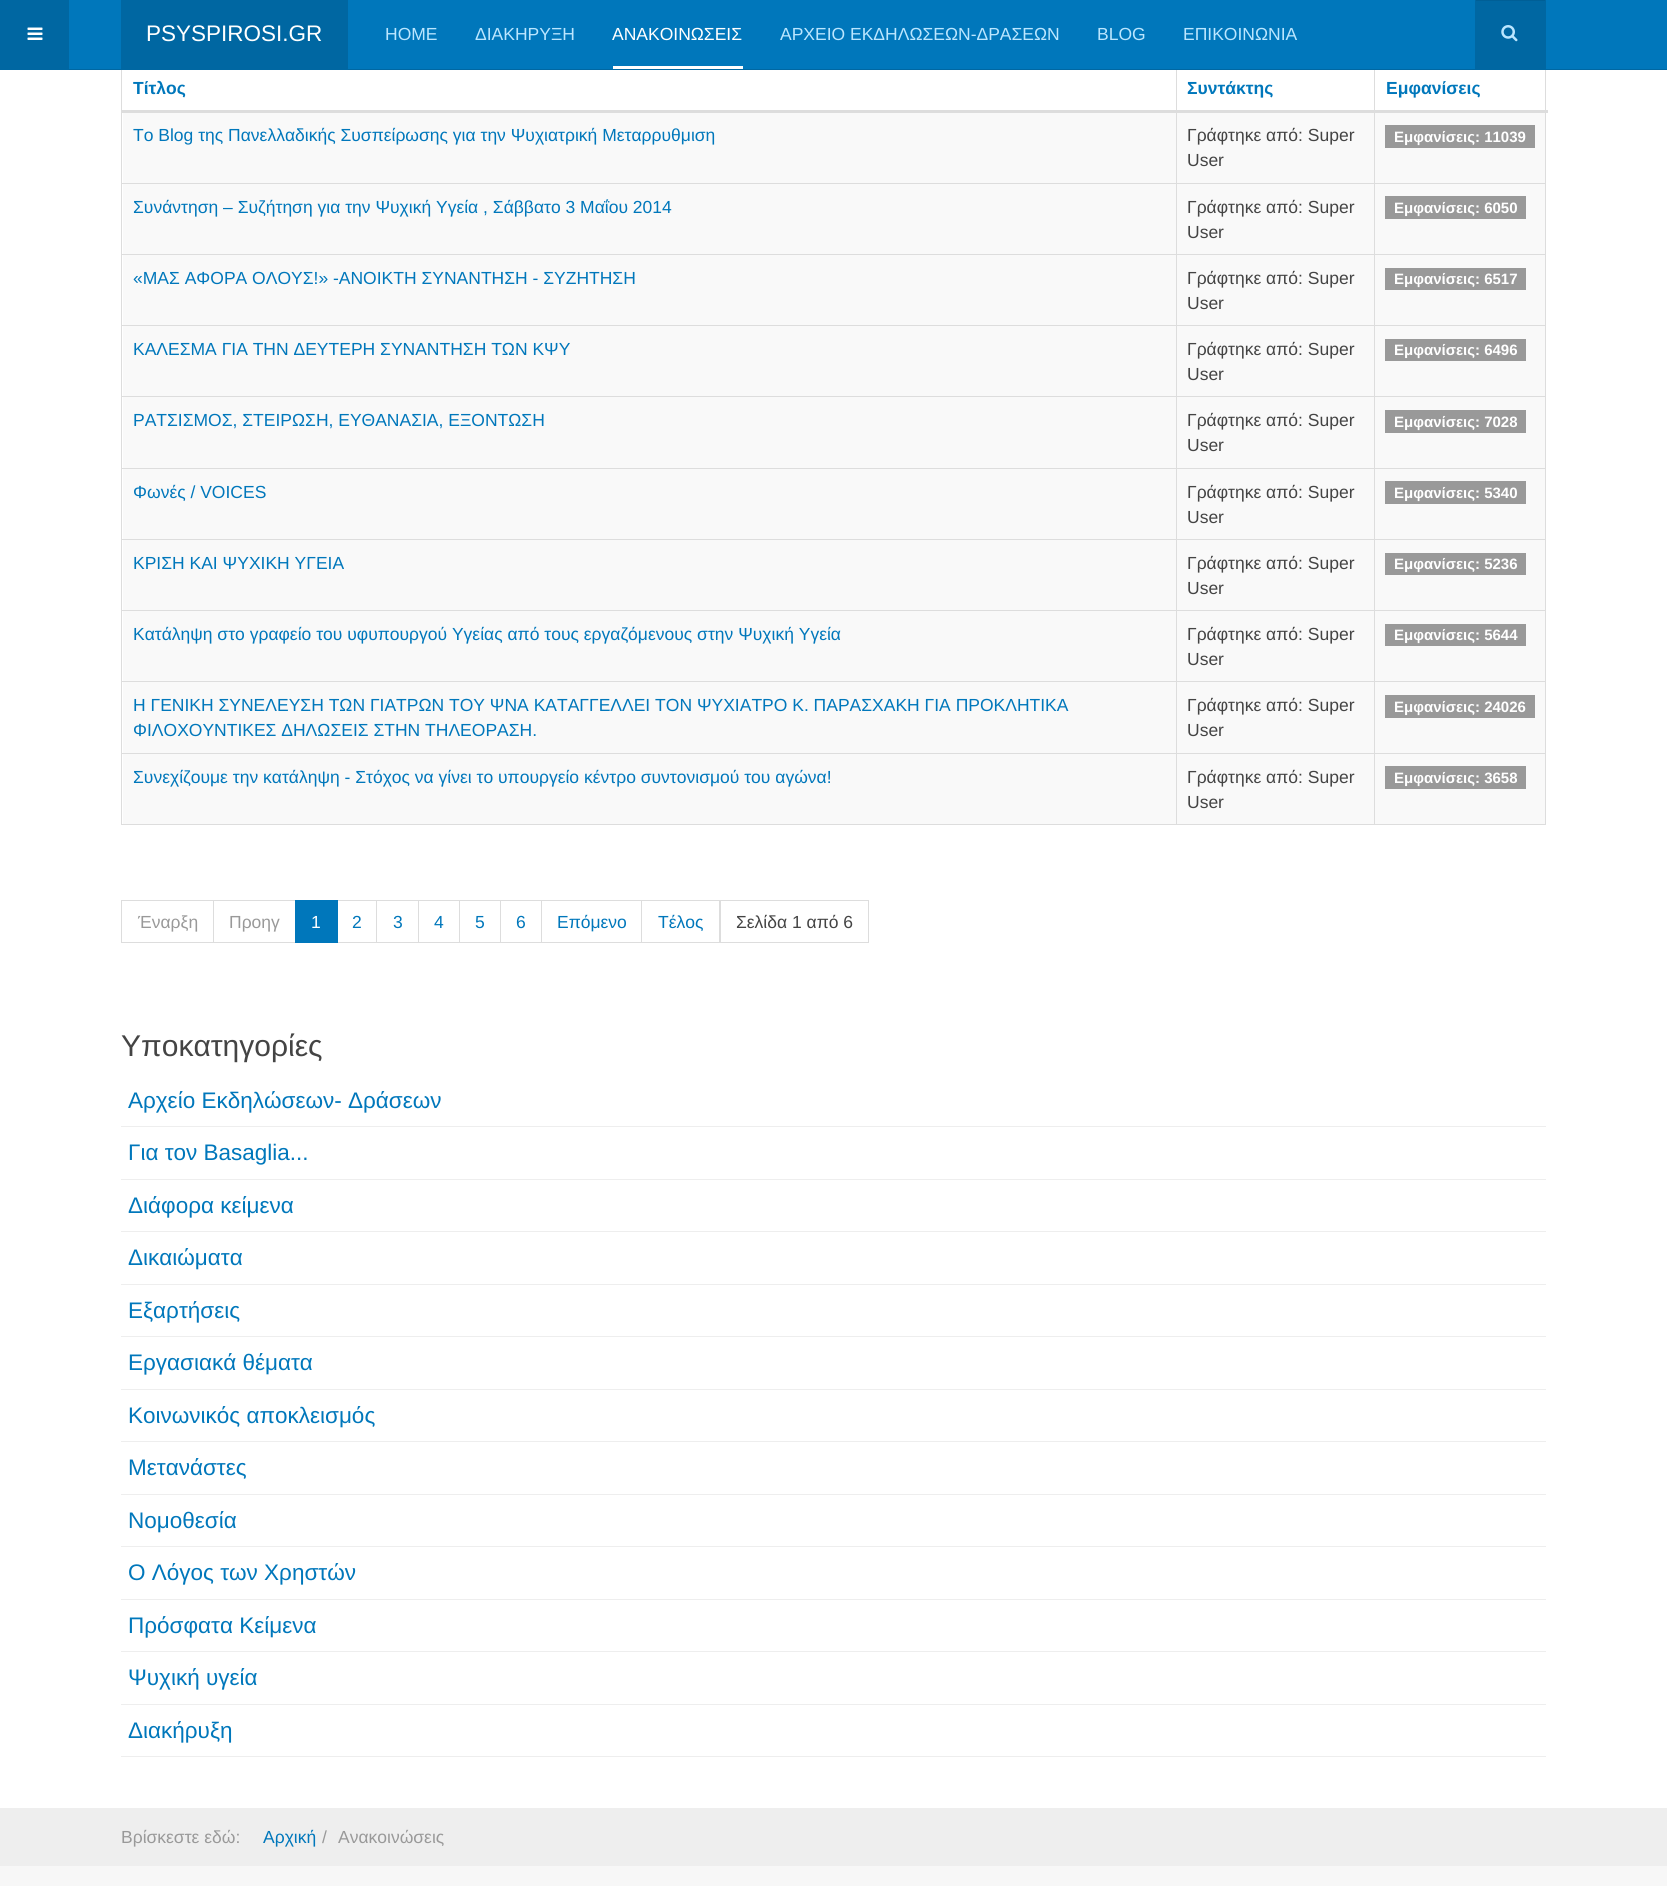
#include <cairo/cairo.h>
#include <math.h>
#include <stddef.h>

typedef struct { double x, y; const char *s; } line_t;
typedef struct { double x, y, w, h; unsigned color; } box_t;
static cairo_t *cr;

static void rgb(unsigned color)
{
	cairo_set_source_rgb(cr, (color >> 16) / 255.0, (color >> 8 & 255) / 255.0, (color & 255) / 255.0);
}

static void image(const char *path, double x, double y, double w, double h)
{
	cairo_surface_t *image = cairo_image_surface_create_from_png(path);
	cairo_save(cr);
	cairo_set_source_surface(cr, image, x, y);
	cairo_rectangle(cr, x, y, w, h);
	cairo_fill(cr);
	cairo_restore(cr);
	cairo_surface_destroy(image);
}

int main(void) {
	cairo_surface_t *surface = cairo_image_surface_create(CAIRO_FORMAT_RGB24, 1667, 1886);
	cr = cairo_create(surface);
	cairo_font_options_t *options = cairo_font_options_create();
	cairo_font_options_set_hint_metrics(options, CAIRO_HINT_METRICS_OFF);
	cairo_font_options_set_hint_style(options, CAIRO_HINT_STYLE_NONE);
	cairo_set_font_options(cr, options);
	cairo_set_miter_limit(cr, 4);
	rgb(0xffffff);
	cairo_paint(cr);
	{
		static const box_t items[] = {
			{1545, 64, 1, 761, 0xdddddd},
			{121, 824, 1425, 1, 0xdddddd},
			{121, 64, 1, 761, 0xdddddd},
			{123, 113, 1422, 70, 0xf9f9f9},
			{1374, 183, 172, 1, 0xdddddd},
			{123, 184, 1422, 70, 0xf9f9f9},
			{1374, 254, 172, 1, 0xdddddd},
			{123, 255, 1422, 70, 0xf9f9f9},
			{1374, 325, 172, 1, 0xdddddd},
			{123, 326, 1422, 142, 0xf9f9f9},
			{1374, 396, 172, 1, 0xdddddd},
			{1374, 468, 172, 1, 0xdddddd},
			{123, 469, 1422, 70, 0xf9f9f9},
			{1374, 539, 172, 1, 0xdddddd},
			{123, 540, 1422, 70, 0xf9f9f9},
			{1374, 610, 172, 1, 0xdddddd},
			{123, 611, 1422, 142, 0xf9f9f9},
			{1374, 681, 172, 1, 0xdddddd},
			{1374, 753, 172, 1, 0xdddddd},
			{123, 754, 1422, 70, 0xf9f9f9},
			{1374, 753, 1, 72, 0xdddddd},
			{1176, 753, 199, 1, 0xdddddd},
			{1374, 681, 1, 73, 0xdddddd},
			{1176, 681, 199, 1, 0xdddddd},
			{1374, 610, 1, 73, 0xdddddd},
			{1176, 610, 199, 1, 0xdddddd},
			{1374, 539, 1, 72, 0xdddddd},
			{1176, 539, 199, 1, 0xdddddd},
			{1374, 468, 1, 72, 0xdddddd},
			{1176, 468, 199, 1, 0xdddddd},
			{1374, 396, 1, 73, 0xdddddd},
			{1176, 396, 199, 1, 0xdddddd},
			{1374, 325, 1, 73, 0xdddddd},
			{1176, 325, 199, 1, 0xdddddd},
			{1374, 254, 1, 72, 0xdddddd},
			{1176, 254, 199, 1, 0xdddddd},
			{1374, 183, 1, 72, 0xdddddd},
			{1176, 183, 199, 1, 0xdddddd},
			{1176, 753, 1, 72, 0xdddddd},
			{121, 753, 1057, 1, 0xdddddd},
			{1176, 681, 1, 73, 0xdddddd},
			{121, 681, 1057, 1, 0xdddddd},
			{1176, 610, 1, 73, 0xdddddd},
			{121, 610, 1057, 1, 0xdddddd},
			{1176, 539, 1, 72, 0xdddddd},
			{121, 539, 1057, 1, 0xdddddd},
			{1176, 468, 1, 72, 0xdddddd},
			{121, 468, 1057, 1, 0xdddddd},
			{1176, 396, 1, 73, 0xdddddd},
			{121, 396, 1057, 1, 0xdddddd},
			{1176, 325, 1, 73, 0xdddddd},
			{121, 325, 1057, 1, 0xdddddd},
			{1176, 254, 1, 72, 0xdddddd},
			{121, 254, 1057, 1, 0xdddddd},
			{1176, 183, 1, 72, 0xdddddd},
			{121, 183, 1057, 1, 0xdddddd},
			{1176, 64, 1, 120, 0xdddddd},
			{1374, 64, 1, 120, 0xdddddd},
			{69, 0, 1598, 69, 0x0077bb},
			{0, 69, 1667, 1, 0x0067a2},
			{0, 0, 69, 69, 0x0067a2},
		};
		for (size_t i = 0; i < sizeof items / sizeof *items; i++) {
			rgb(items[i].color);
			cairo_rectangle(cr, items[i].x, items[i].y, items[i].w, items[i].h);
			cairo_fill(cr);
		}
	}
	image("img/1.png", 27, 27, 16, 13);
	{
		static const box_t items[] = {
			{121, 0, 227, 69, 0x0067a2},
			{1475, 0, 71, 69, 0x0067a2},
			{1476, 0, 69, 1, 0x005f96},
		};
		for (size_t i = 0; i < sizeof items / sizeof *items; i++) {
			rgb(items[i].color);
			cairo_rectangle(cr, items[i].x, items[i].y, items[i].w, items[i].h);
			cairo_fill(cr);
		}
	}
	image("img/2.png", 1501, 25, 17, 17);
	{
		static const box_t items[] = {
			{613, 66, 130, 3, 0xffffff},
			{121, 110, 1427, 3, 0xdddddd},
			{1385, 125, 150, 23, 0x999999},
			{1385, 196, 141, 23, 0x999999},
			{1385, 268, 141, 22, 0x999999},
			{1385, 339, 141, 22, 0x999999},
			{1385, 410, 141, 23, 0x999999},
			{1385, 481, 141, 23, 0x999999},
			{1385, 553, 141, 22, 0x999999},
			{1385, 624, 141, 22, 0x999999},
			{1385, 695, 150, 23, 0x999999},
			{1385, 766, 141, 23, 0x999999},
		};
		for (size_t i = 0; i < sizeof items / sizeof *items; i++) {
			rgb(items[i].color);
			cairo_rectangle(cr, items[i].x, items[i].y, items[i].w, items[i].h);
			cairo_fill(cr);
		}
	}
	cairo_rectangle(cr, 121.5, 900.5, 92, 42);
	rgb(0xdddddd);
	cairo_set_line_width(cr, 1);
	cairo_stroke(cr);
	cairo_rectangle(cr, 213.5, 900.5, 82, 42);
	cairo_stroke(cr);
	cairo_rectangle(cr, 336.5, 900.5, 41, 42);
	cairo_stroke(cr);
	rgb(0x0077bb);
	cairo_rectangle(cr, 295, 900, 43, 43);
	cairo_fill(cr);
	rgb(0xffffff);
	cairo_rectangle(cr, 377, 901, 1, 41);
	cairo_fill(cr);
	cairo_rectangle(cr, 376.5, 900.5, 42, 42);
	rgb(0xdddddd);
	cairo_stroke(cr);
	cairo_rectangle(cr, 418.5, 900.5, 41, 42);
	cairo_stroke(cr);
	cairo_rectangle(cr, 459.5, 900.5, 41, 42);
	cairo_stroke(cr);
	cairo_rectangle(cr, 500.5, 900.5, 42, 42);
	cairo_stroke(cr);
	rgb(0xffffff);
	cairo_rectangle(cr, 542, 901, 1, 41);
	cairo_fill(cr);
	cairo_rectangle(cr, 541.5, 900.5, 101, 42);
	rgb(0xdddddd);
	cairo_stroke(cr);
	rgb(0xffffff);
	cairo_rectangle(cr, 642, 901, 1, 41);
	cairo_fill(cr);
	cairo_rectangle(cr, 641.5, 900.5, 78, 42);
	rgb(0xdddddd);
	cairo_stroke(cr);
	cairo_rectangle(cr, 720.5, 900.5, 148, 42);
	cairo_stroke(cr);
	{
		static const box_t items[] = {
			{121, 1126, 1425, 1, 0xeeeeee},
			{121, 1179, 1425, 1, 0xeeeeee},
			{121, 1231, 1425, 1, 0xeeeeee},
			{121, 1284, 1425, 1, 0xeeeeee},
			{121, 1336, 1425, 1, 0xeeeeee},
			{121, 1389, 1425, 1, 0xeeeeee},
			{121, 1441, 1425, 1, 0xeeeeee},
			{121, 1494, 1425, 1, 0xeeeeee},
			{121, 1546, 1425, 1, 0xeeeeee},
			{121, 1599, 1425, 1, 0xeeeeee},
			{121, 1651, 1425, 1, 0xeeeeee},
			{121, 1704, 1425, 1, 0xeeeeee},
			{121, 1756, 1425, 1, 0xeeeeee},
			{0, 1808, 1667, 58, 0xeeeeee},
			{0, 1866, 1667, 20, 0xf7f7f7},
		};
		for (size_t i = 0; i < sizeof items / sizeof *items; i++) {
			rgb(items[i].color);
			cairo_rectangle(cr, items[i].x, items[i].y, items[i].w, items[i].h);
			cairo_fill(cr);
		}
	}
	cairo_select_font_face(cr, "Liberation Sans", CAIRO_FONT_SLANT_NORMAL, CAIRO_FONT_WEIGHT_NORMAL);
	cairo_set_font_size(cr, 22.5);
	rgb(0xffffff);
	cairo_move_to(cr, 146, 41);
	cairo_show_text(cr, "PSYSPIROSI.GR");
	cairo_set_font_size(cr, 17.5);
	rgb(0xbbe6ff);
	cairo_move_to(cr, 385, 40);
	cairo_show_text(cr, "HOME");
	cairo_move_to(cr, 475, 40);
	cairo_show_text(cr, "ΔΙΑΚΗΡΥΞΗ");
	rgb(0xffffff);
	cairo_move_to(cr, 612, 40);
	cairo_show_text(cr, "ΑΝΑΚΟΙΝΩΣΕΙΣ");
	rgb(0xbbe6ff);
	{
		static const line_t items[] = {
			{780, 40, "ΑΡΧΕΙΟ ΕΚΔΗΛΩΣΕΩΝ-ΔΡΑΣΕΩΝ"},
			{1097, 40, "BLOG"},
			{1183, 40, "ΕΠΙΚΟΙΝΩΝΙΑ"},
		};
		for (size_t i = 0; i < sizeof items / sizeof *items; i++) {
			cairo_move_to(cr, items[i].x, items[i].y);
			cairo_show_text(cr, items[i].s);
		}
	}
	cairo_select_font_face(cr, "Liberation Sans", CAIRO_FONT_SLANT_NORMAL, CAIRO_FONT_WEIGHT_BOLD);
	rgb(0x0077bb);
	{
		static const line_t items[] = {
			{133, 94, "Τίτλος"},
			{1187, 94, "Συντάκτης"},
			{1386, 94, "Εμφανίσεις"},
		};
		for (size_t i = 0; i < sizeof items / sizeof *items; i++) {
			cairo_move_to(cr, items[i].x, items[i].y);
			cairo_show_text(cr, items[i].s);
		}
	}
	cairo_select_font_face(cr, "Liberation Sans", CAIRO_FONT_SLANT_NORMAL, CAIRO_FONT_WEIGHT_NORMAL);
	cairo_move_to(cr, 133, 141);
	cairo_show_text(cr, "To Blog της Πανελλαδικής Συσπείρωσης για την Ψυχιατρική Μεταρρυθμιση");
	rgb(0x444444);
	cairo_move_to(cr, 1187, 141);
	cairo_show_text(cr, "Γράφτηκε από: Super");
	cairo_move_to(cr, 1187, 166);
	cairo_show_text(cr, "User");
	cairo_select_font_face(cr, "Liberation Sans", CAIRO_FONT_SLANT_NORMAL, CAIRO_FONT_WEIGHT_BOLD);
	cairo_set_font_size(cr, 15);
	rgb(0xffffff);
	cairo_move_to(cr, 1394, 142);
	cairo_show_text(cr, "Εμφανίσεις: 11039");
	cairo_select_font_face(cr, "Liberation Sans", CAIRO_FONT_SLANT_NORMAL, CAIRO_FONT_WEIGHT_NORMAL);
	cairo_set_font_size(cr, 17.5);
	rgb(0x0077bb);
	cairo_move_to(cr, 133, 213);
	cairo_show_text(cr, "Συνάντηση – Συζήτηση για την Ψυχική Υγεία , Σάββατο 3 Μαΐου 2014");
	rgb(0x444444);
	cairo_move_to(cr, 1187, 213);
	cairo_show_text(cr, "Γράφτηκε από: Super");
	cairo_move_to(cr, 1187, 238);
	cairo_show_text(cr, "User");
	cairo_select_font_face(cr, "Liberation Sans", CAIRO_FONT_SLANT_NORMAL, CAIRO_FONT_WEIGHT_BOLD);
	cairo_set_font_size(cr, 15);
	rgb(0xffffff);
	cairo_move_to(cr, 1394, 213);
	cairo_show_text(cr, "Εμφανίσεις: 6050");
	cairo_select_font_face(cr, "Liberation Sans", CAIRO_FONT_SLANT_NORMAL, CAIRO_FONT_WEIGHT_NORMAL);
	cairo_set_font_size(cr, 17.5);
	rgb(0x0077bb);
	cairo_move_to(cr, 133, 284);
	cairo_show_text(cr, "«ΜΑΣ ΑΦΟΡΑ ΟΛΟΥΣ!» -ΑΝΟΙΚΤΗ ΣΥΝΑΝΤΗΣΗ - ΣΥΖΗΤΗΣΗ");
	rgb(0x444444);
	cairo_move_to(cr, 1187, 284);
	cairo_show_text(cr, "Γράφτηκε από: Super");
	cairo_move_to(cr, 1187, 309);
	cairo_show_text(cr, "User");
	cairo_select_font_face(cr, "Liberation Sans", CAIRO_FONT_SLANT_NORMAL, CAIRO_FONT_WEIGHT_BOLD);
	cairo_set_font_size(cr, 15);
	rgb(0xffffff);
	cairo_move_to(cr, 1394, 284);
	cairo_show_text(cr, "Εμφανίσεις: 6517");
	cairo_select_font_face(cr, "Liberation Sans", CAIRO_FONT_SLANT_NORMAL, CAIRO_FONT_WEIGHT_NORMAL);
	cairo_set_font_size(cr, 17.5);
	rgb(0x0077bb);
	cairo_move_to(cr, 133, 355);
	cairo_show_text(cr, "ΚΑΛΕΣΜΑ ΓΙΑ ΤΗΝ ΔΕΥΤΕΡΗ ΣΥΝΑΝΤΗΣΗ ΤΩΝ ΚΨΥ");
	rgb(0x444444);
	cairo_move_to(cr, 1187, 355);
	cairo_show_text(cr, "Γράφτηκε από: Super");
	cairo_move_to(cr, 1187, 380);
	cairo_show_text(cr, "User");
	cairo_select_font_face(cr, "Liberation Sans", CAIRO_FONT_SLANT_NORMAL, CAIRO_FONT_WEIGHT_BOLD);
	cairo_set_font_size(cr, 15);
	rgb(0xffffff);
	cairo_move_to(cr, 1394, 355);
	cairo_show_text(cr, "Εμφανίσεις: 6496");
	cairo_select_font_face(cr, "Liberation Sans", CAIRO_FONT_SLANT_NORMAL, CAIRO_FONT_WEIGHT_NORMAL);
	cairo_set_font_size(cr, 17.5);
	rgb(0x0077bb);
	cairo_move_to(cr, 133, 426);
	cairo_show_text(cr, "ΡΑΤΣΙΣΜΟΣ, ΣΤΕΙΡΩΣΗ, ΕΥΘΑΝΑΣΙΑ, ΕΞΟΝΤΩΣΗ");
	rgb(0x444444);
	cairo_move_to(cr, 1187, 426);
	cairo_show_text(cr, "Γράφτηκε από: Super");
	cairo_move_to(cr, 1187, 451);
	cairo_show_text(cr, "User");
	cairo_select_font_face(cr, "Liberation Sans", CAIRO_FONT_SLANT_NORMAL, CAIRO_FONT_WEIGHT_BOLD);
	cairo_set_font_size(cr, 15);
	rgb(0xffffff);
	cairo_move_to(cr, 1394, 427);
	cairo_show_text(cr, "Εμφανίσεις: 7028");
	cairo_select_font_face(cr, "Liberation Sans", CAIRO_FONT_SLANT_NORMAL, CAIRO_FONT_WEIGHT_NORMAL);
	cairo_set_font_size(cr, 17.5);
	rgb(0x0077bb);
	cairo_move_to(cr, 133, 498);
	cairo_show_text(cr, "Φωνές / VOICES");
	rgb(0x444444);
	cairo_move_to(cr, 1187, 498);
	cairo_show_text(cr, "Γράφτηκε από: Super");
	cairo_move_to(cr, 1187, 523);
	cairo_show_text(cr, "User");
	cairo_select_font_face(cr, "Liberation Sans", CAIRO_FONT_SLANT_NORMAL, CAIRO_FONT_WEIGHT_BOLD);
	cairo_set_font_size(cr, 15);
	rgb(0xffffff);
	cairo_move_to(cr, 1394, 498);
	cairo_show_text(cr, "Εμφανίσεις: 5340");
	cairo_select_font_face(cr, "Liberation Sans", CAIRO_FONT_SLANT_NORMAL, CAIRO_FONT_WEIGHT_NORMAL);
	cairo_set_font_size(cr, 17.5);
	rgb(0x0077bb);
	cairo_move_to(cr, 133, 569);
	cairo_show_text(cr, "ΚΡΙΣΗ ΚΑΙ ΨΥΧΙΚΗ ΥΓΕΙΑ");
	rgb(0x444444);
	cairo_move_to(cr, 1187, 569);
	cairo_show_text(cr, "Γράφτηκε από: Super");
	cairo_move_to(cr, 1187, 594);
	cairo_show_text(cr, "User");
	cairo_select_font_face(cr, "Liberation Sans", CAIRO_FONT_SLANT_NORMAL, CAIRO_FONT_WEIGHT_BOLD);
	cairo_set_font_size(cr, 15);
	rgb(0xffffff);
	cairo_move_to(cr, 1394, 569);
	cairo_show_text(cr, "Εμφανίσεις: 5236");
	cairo_select_font_face(cr, "Liberation Sans", CAIRO_FONT_SLANT_NORMAL, CAIRO_FONT_WEIGHT_NORMAL);
	cairo_set_font_size(cr, 17.5);
	rgb(0x0077bb);
	cairo_move_to(cr, 133, 640);
	cairo_show_text(cr, "Κατάληψη στο γραφείο του υφυπουργού Υγείας από τους εργαζόμενους στην Ψυχική Υγεία");
	rgb(0x444444);
	cairo_move_to(cr, 1187, 640);
	cairo_show_text(cr, "Γράφτηκε από: Super");
	cairo_move_to(cr, 1187, 665);
	cairo_show_text(cr, "User");
	cairo_select_font_face(cr, "Liberation Sans", CAIRO_FONT_SLANT_NORMAL, CAIRO_FONT_WEIGHT_BOLD);
	cairo_set_font_size(cr, 15);
	rgb(0xffffff);
	cairo_move_to(cr, 1394, 640);
	cairo_show_text(cr, "Εμφανίσεις: 5644");
	cairo_select_font_face(cr, "Liberation Sans", CAIRO_FONT_SLANT_NORMAL, CAIRO_FONT_WEIGHT_NORMAL);
	cairo_set_font_size(cr, 17.5);
	rgb(0x0077bb);
	cairo_move_to(cr, 133, 711);
	cairo_show_text(cr, "Η ΓΕΝΙΚΗ ΣΥΝΕΛΕΥΣΗ ΤΩΝ ΓΙΑΤΡΩΝ ΤΟΥ ΨΝΑ ΚΑΤΑΓΓΕΛΛΕΙ ΤΟΝ ΨΥΧΙΑΤΡΟ Κ. ΠΑΡΑΣΧΑΚΗ ΓΙΑ ΠΡΟΚΛΗΤΙΚΑ");
	cairo_move_to(cr, 133, 736);
	cairo_show_text(cr, "ΦΙΛΟΧΟΥΝΤΙΚΕΣ ΔΗΛΩΣΕΙΣ ΣΤΗΝ ΤΗΛΕΟΡΑΣΗ.");
	rgb(0x444444);
	cairo_move_to(cr, 1187, 711);
	cairo_show_text(cr, "Γράφτηκε από: Super");
	cairo_move_to(cr, 1187, 736);
	cairo_show_text(cr, "User");
	cairo_select_font_face(cr, "Liberation Sans", CAIRO_FONT_SLANT_NORMAL, CAIRO_FONT_WEIGHT_BOLD);
	cairo_set_font_size(cr, 15);
	rgb(0xffffff);
	cairo_move_to(cr, 1394, 712);
	cairo_show_text(cr, "Εμφανίσεις: 24026");
	cairo_select_font_face(cr, "Liberation Sans", CAIRO_FONT_SLANT_NORMAL, CAIRO_FONT_WEIGHT_NORMAL);
	cairo_set_font_size(cr, 17.5);
	rgb(0x0077bb);
	cairo_move_to(cr, 133, 783);
	cairo_show_text(cr, "Συνεχίζουμε την κατάληψη - Στόχος να γίνει το υπουργείο κέντρο συντονισμού του αγώνα!");
	rgb(0x444444);
	cairo_move_to(cr, 1187, 783);
	cairo_show_text(cr, "Γράφτηκε από: Super");
	cairo_move_to(cr, 1187, 808);
	cairo_show_text(cr, "User");
	cairo_select_font_face(cr, "Liberation Sans", CAIRO_FONT_SLANT_NORMAL, CAIRO_FONT_WEIGHT_BOLD);
	cairo_set_font_size(cr, 15);
	rgb(0xffffff);
	cairo_move_to(cr, 1394, 783);
	cairo_show_text(cr, "Εμφανίσεις: 3658");
	cairo_select_font_face(cr, "Liberation Sans", CAIRO_FONT_SLANT_NORMAL, CAIRO_FONT_WEIGHT_NORMAL);
	cairo_set_font_size(cr, 17.5);
	rgb(0x999999);
	cairo_move_to(cr, 138, 928);
	cairo_show_text(cr, "Έναρξη");
	cairo_move_to(cr, 229, 928);
	cairo_show_text(cr, "Προηγ");
	rgb(0xffffff);
	cairo_move_to(cr, 311, 928);
	cairo_show_text(cr, "1");
	rgb(0x0077bb);
	{
		static const line_t items[] = {
			{352, 928, "2"},
			{393, 928, "3"},
			{434, 928, "4"},
			{475, 928, "5"},
			{516, 928, "6"},
			{557, 928, "Επόμενο"},
			{658, 928, "Τέλος"},
		};
		for (size_t i = 0; i < sizeof items / sizeof *items; i++) {
			cairo_move_to(cr, items[i].x, items[i].y);
			cairo_show_text(cr, items[i].s);
		}
	}
	rgb(0x444444);
	cairo_move_to(cr, 736, 928);
	cairo_show_text(cr, "Σελίδα 1 από 6");
	cairo_set_font_size(cr, 30);
	cairo_move_to(cr, 121, 1056);
	cairo_show_text(cr, "Υποκατηγορίες");
	cairo_set_font_size(cr, 22.5);
	rgb(0x0077bb);
	{
		static const line_t items[] = {
			{128, 1108, "Αρχείο Εκδηλώσεων- Δράσεων"},
			{128, 1160, "Για τον Basaglia..."},
			{128, 1213, "Διάφορα κείμενα"},
			{128, 1265, "Δικαιώματα"},
			{128, 1318, "Εξαρτήσεις"},
			{128, 1370, "Εργασιακά θέματα"},
			{128, 1423, "Κοινωνικός αποκλεισμός"},
			{128, 1475, "Μετανάστες"},
			{128, 1528, "Νομοθεσία"},
			{128, 1580, "Ο Λόγος των Χρηστών"},
			{128, 1633, "Πρόσφατα Κείμενα"},
			{128, 1685, "Ψυχική υγεία"},
			{128, 1738, "Διακήρυξη"},
		};
		for (size_t i = 0; i < sizeof items / sizeof *items; i++) {
			cairo_move_to(cr, items[i].x, items[i].y);
			cairo_show_text(cr, items[i].s);
		}
	}
	cairo_set_font_size(cr, 17.5);
	rgb(0x999999);
	cairo_move_to(cr, 121, 1843);
	cairo_show_text(cr, "Βρίσκεστε εδώ:");
	rgb(0x0077bb);
	cairo_move_to(cr, 263, 1843);
	cairo_show_text(cr, "Αρχική");
	rgb(0x999999);
	cairo_move_to(cr, 322, 1843);
	cairo_show_text(cr, "/");
	cairo_move_to(cr, 338, 1843);
	cairo_show_text(cr, "Ανακοινώσεις");
	cairo_surface_write_to_png(surface, "page.png");
	cairo_font_options_destroy(options);
	cairo_destroy(cr);
	cairo_surface_destroy(surface);
	return 0;
}
